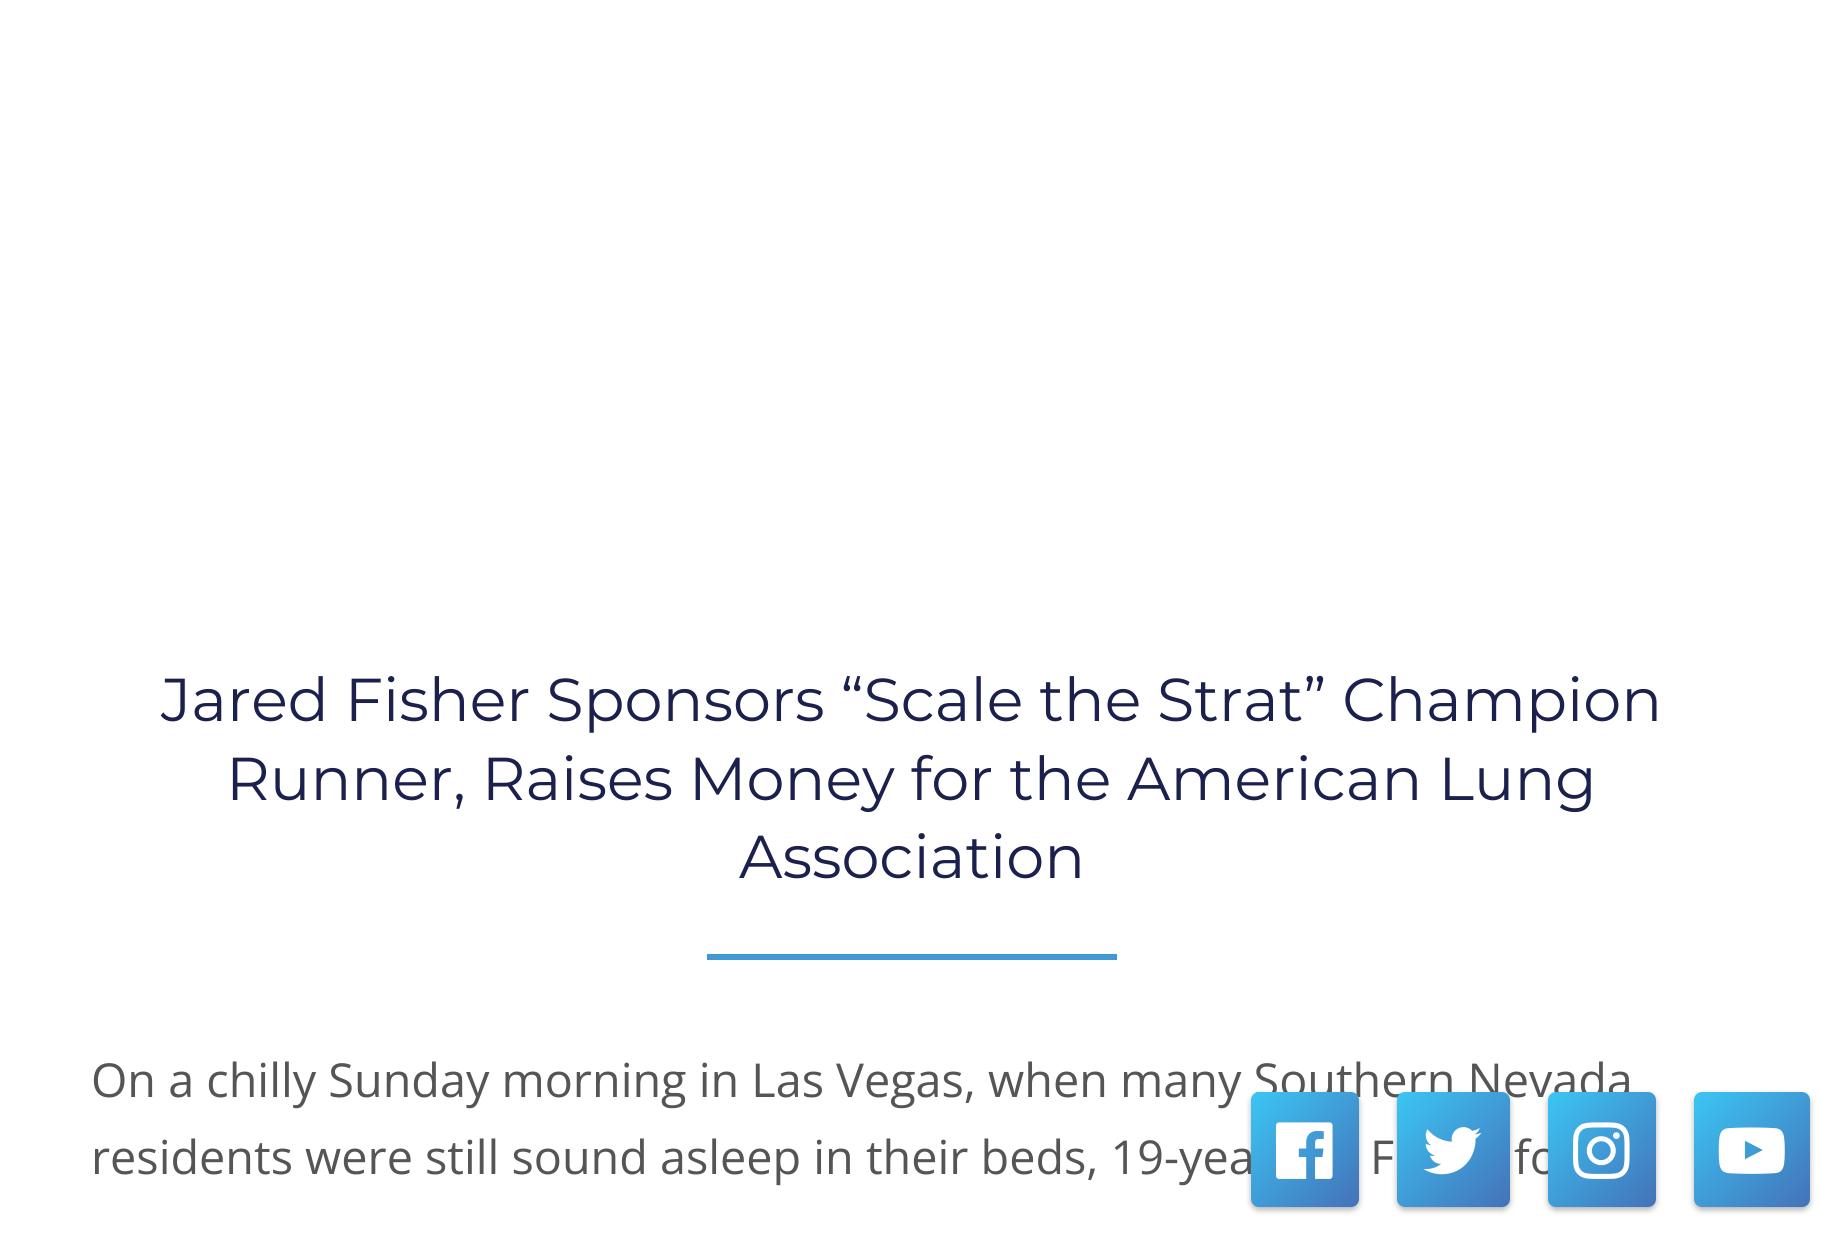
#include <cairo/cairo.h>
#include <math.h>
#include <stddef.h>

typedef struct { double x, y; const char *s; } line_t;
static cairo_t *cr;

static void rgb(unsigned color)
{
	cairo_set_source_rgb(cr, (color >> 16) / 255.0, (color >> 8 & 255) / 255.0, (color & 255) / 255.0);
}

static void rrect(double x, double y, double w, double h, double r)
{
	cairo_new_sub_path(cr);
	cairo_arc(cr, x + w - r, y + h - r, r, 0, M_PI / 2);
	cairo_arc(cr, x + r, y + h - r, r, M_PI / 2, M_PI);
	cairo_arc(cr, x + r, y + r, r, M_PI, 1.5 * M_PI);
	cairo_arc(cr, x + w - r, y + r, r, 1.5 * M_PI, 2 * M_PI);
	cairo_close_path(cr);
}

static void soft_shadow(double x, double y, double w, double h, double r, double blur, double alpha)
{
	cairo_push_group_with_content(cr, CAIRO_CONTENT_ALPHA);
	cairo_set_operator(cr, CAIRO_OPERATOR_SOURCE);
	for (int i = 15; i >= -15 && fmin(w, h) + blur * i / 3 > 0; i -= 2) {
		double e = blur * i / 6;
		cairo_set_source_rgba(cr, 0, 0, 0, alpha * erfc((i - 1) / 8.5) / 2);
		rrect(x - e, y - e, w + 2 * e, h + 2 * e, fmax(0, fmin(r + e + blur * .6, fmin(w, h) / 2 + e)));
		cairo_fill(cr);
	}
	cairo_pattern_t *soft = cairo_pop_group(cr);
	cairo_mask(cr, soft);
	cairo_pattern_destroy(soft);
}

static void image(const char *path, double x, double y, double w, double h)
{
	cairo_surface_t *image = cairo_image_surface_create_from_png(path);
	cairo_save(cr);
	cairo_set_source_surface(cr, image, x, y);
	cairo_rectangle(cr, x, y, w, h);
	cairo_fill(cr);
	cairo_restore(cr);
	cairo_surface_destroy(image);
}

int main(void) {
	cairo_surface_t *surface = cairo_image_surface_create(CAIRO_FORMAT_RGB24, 1821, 1234);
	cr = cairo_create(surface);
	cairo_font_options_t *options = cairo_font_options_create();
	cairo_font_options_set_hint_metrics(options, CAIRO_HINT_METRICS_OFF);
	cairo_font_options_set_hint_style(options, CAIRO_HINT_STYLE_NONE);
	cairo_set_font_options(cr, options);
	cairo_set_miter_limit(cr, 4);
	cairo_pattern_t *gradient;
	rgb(0xffffff);
	cairo_paint(cr);
	rgb(0x4198d3);
	cairo_rectangle(cr, 707, 954, 410, 6);
	cairo_fill(cr);
	rgb(0x000000);
	soft_shadow(1251, 1095, 108, 115, 8, 3, 0.3);
	soft_shadow(1397, 1095, 113, 115, 8, 3, 0.3);
	soft_shadow(1548, 1095, 108, 115, 8, 3, 0.3);
	soft_shadow(1694, 1095, 116, 115, 8, 3, 0.3);
	gradient = cairo_pattern_create_linear(1694, 1092, 1810, 1207);
	cairo_pattern_add_color_stop_rgba(gradient, 0, 0.231, 0.776, 0.957, 1);
	cairo_pattern_add_color_stop_rgba(gradient, 1, 0.267, 0.447, 0.722, 1);
	cairo_set_source(cr, gradient);
	cairo_pattern_destroy(gradient);
	rrect(1694, 1092, 116, 115, 8);
	cairo_fill(cr);
	image("img/4.png", 1718, 1127, 67, 47);
	cairo_select_font_face(cr, "Montserrat Thin", CAIRO_FONT_SLANT_NORMAL, CAIRO_FONT_WEIGHT_NORMAL);
	cairo_set_font_size(cr, 60.5);
	rgb(0x1b204d);
	{
		static const line_t items[] = {
			{161, 721, "Jared Fisher Sponsors “Scale the Strat” Champion"},
			{226, 800, "Runner, Raises Money for the American Lung"},
			{739, 878, "Association"},
		};
		for (size_t i = 0; i < sizeof items / sizeof *items; i++) {
			cairo_move_to(cr, items[i].x, items[i].y);
			cairo_show_text(cr, items[i].s);
		}
	}
	cairo_select_font_face(cr, "Open Sans", CAIRO_FONT_SLANT_NORMAL, CAIRO_FONT_WEIGHT_NORMAL);
	cairo_set_font_size(cr, 46.75);
	rgb(0x555555);
	{
		static const line_t items[] = {
			{91, 1097, "On a chilly Sunday morning in Las Vegas, when many Southern Nevada"},
			{91, 1174, "residents were still sound asleep in their beds, 19-yea"},
			{1370, 1174, "F"},
			{1514, 1174, "fo"},
		};
		for (size_t i = 0; i < sizeof items / sizeof *items; i++) {
			cairo_move_to(cr, items[i].x, items[i].y);
			cairo_show_text(cr, items[i].s);
		}
	}
	gradient = cairo_pattern_create_linear(1247, 1096, 1362, 1203);
	cairo_pattern_add_color_stop_rgba(gradient, 0, 0.231, 0.776, 0.957, 1);
	cairo_pattern_add_color_stop_rgba(gradient, 1, 0.267, 0.447, 0.722, 1);
	cairo_set_source(cr, gradient);
	cairo_pattern_destroy(gradient);
	rrect(1251, 1092, 108, 115, 8);
	cairo_fill(cr);
	image("img/1.png", 1276, 1122, 57, 57);
	gradient = cairo_pattern_create_linear(1396, 1093, 1511, 1206);
	cairo_pattern_add_color_stop_rgba(gradient, 0, 0.231, 0.776, 0.957, 1);
	cairo_pattern_add_color_stop_rgba(gradient, 1, 0.267, 0.447, 0.722, 1);
	cairo_set_source(cr, gradient);
	cairo_pattern_destroy(gradient);
	rrect(1397, 1092, 113, 115, 8);
	cairo_fill(cr);
	image("img/2.png", 1423, 1127, 59, 48);
	gradient = cairo_pattern_create_linear(1544, 1096, 1659, 1203);
	cairo_pattern_add_color_stop_rgba(gradient, 0, 0.231, 0.776, 0.957, 1);
	cairo_pattern_add_color_stop_rgba(gradient, 1, 0.267, 0.447, 0.722, 1);
	cairo_set_source(cr, gradient);
	cairo_pattern_destroy(gradient);
	rrect(1548, 1092, 108, 115, 8);
	cairo_fill(cr);
	image("img/3.png", 1573, 1122, 57, 57);
	cairo_surface_write_to_png(surface, "page.png");
	cairo_font_options_destroy(options);
	cairo_destroy(cr);
	cairo_surface_destroy(surface);
	return 0;
}
